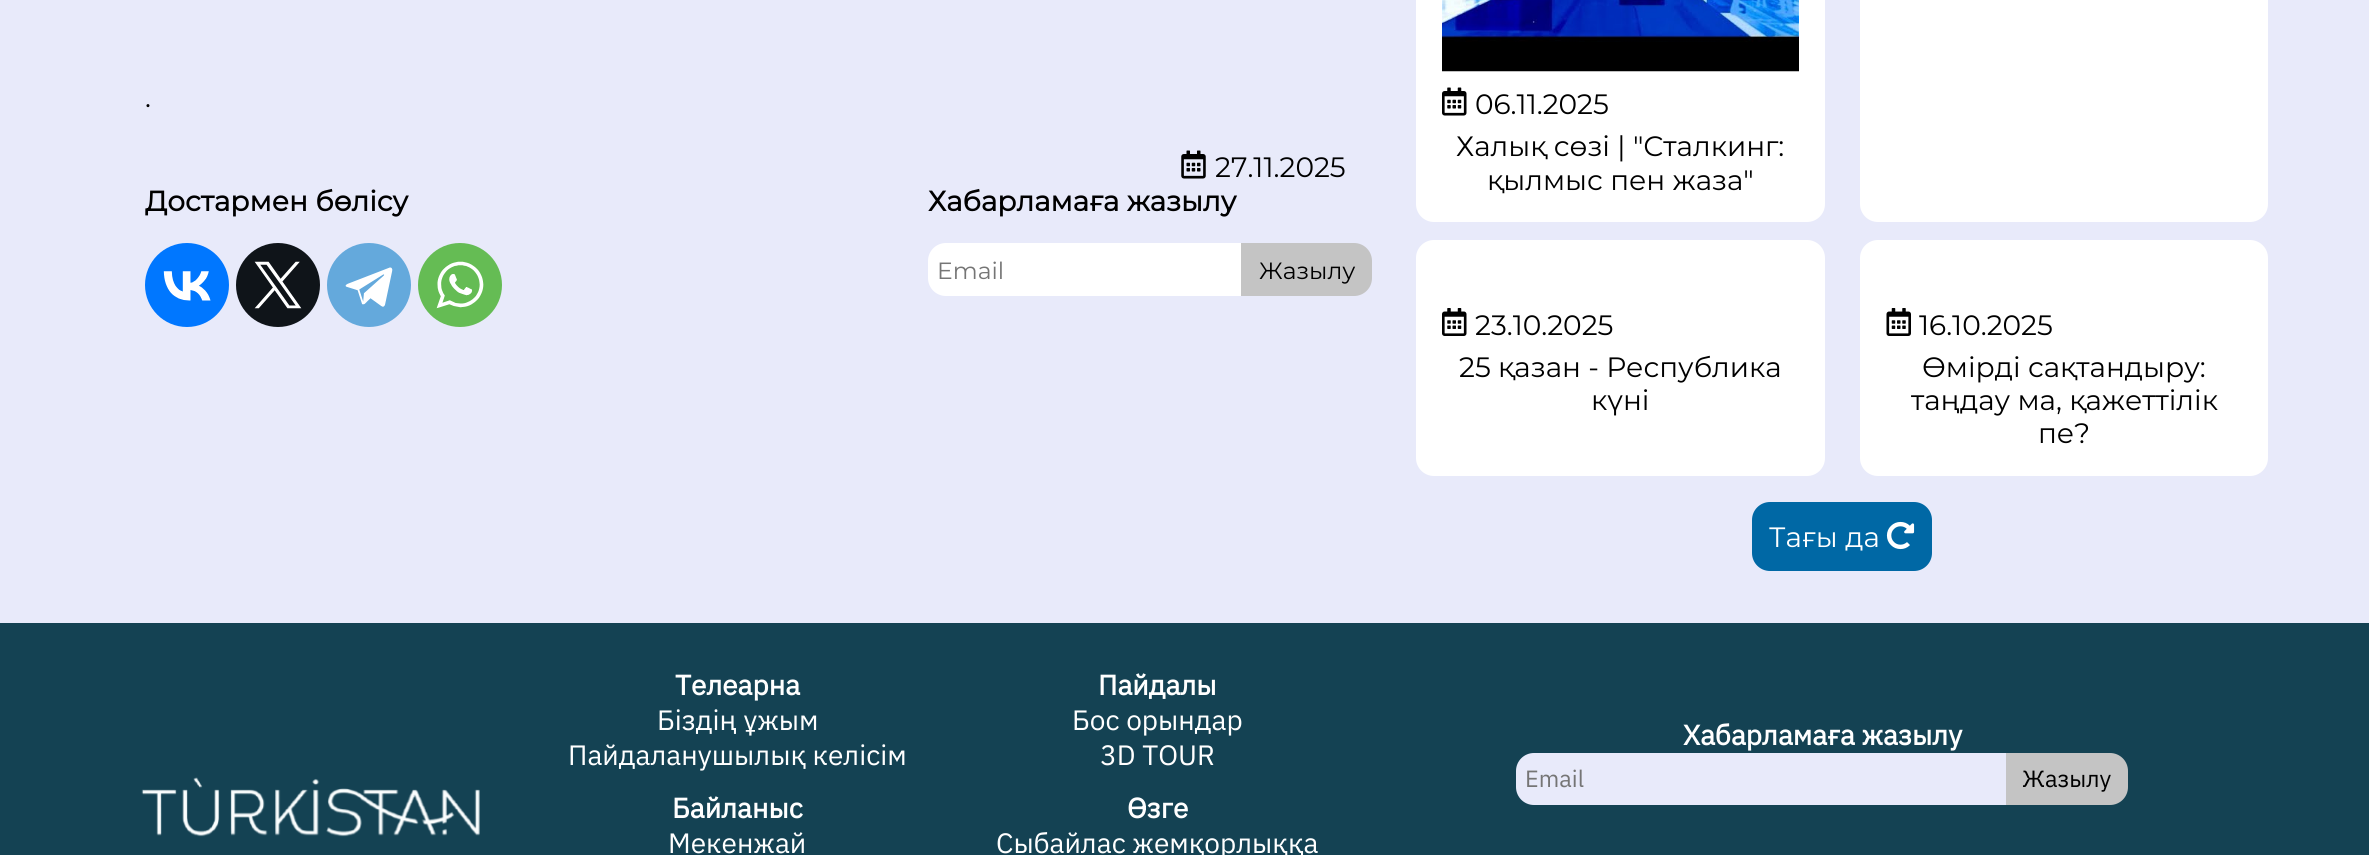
#include <cairo/cairo.h>
#include <math.h>
#include <stddef.h>

typedef struct { double x, y; const char *s; } line_t;
static cairo_t *cr;

static void rgb(unsigned color)
{
	cairo_set_source_rgb(cr, (color >> 16) / 255.0, (color >> 8 & 255) / 255.0, (color & 255) / 255.0);
}

static void rrect(double x, double y, double w, double h, double r)
{
	cairo_new_sub_path(cr);
	cairo_arc(cr, x + w - r, y + h - r, r, 0, M_PI / 2);
	cairo_arc(cr, x + r, y + h - r, r, M_PI / 2, M_PI);
	cairo_arc(cr, x + r, y + r, r, M_PI, 1.5 * M_PI);
	cairo_arc(cr, x + w - r, y + r, r, 1.5 * M_PI, 2 * M_PI);
	cairo_close_path(cr);
}

static void image(const char *path, double x, double y, double w, double h)
{
	cairo_surface_t *image = cairo_image_surface_create_from_png(path);
	cairo_save(cr);
	cairo_set_source_surface(cr, image, x, y);
	cairo_rectangle(cr, x, y, w, h);
	cairo_fill(cr);
	cairo_restore(cr);
	cairo_surface_destroy(image);
}

int main(void) {
	cairo_surface_t *surface = cairo_image_surface_create(CAIRO_FORMAT_RGB24, 2369, 855);
	cr = cairo_create(surface);
	cairo_font_options_t *options = cairo_font_options_create();
	cairo_font_options_set_hint_metrics(options, CAIRO_HINT_METRICS_OFF);
	cairo_font_options_set_hint_style(options, CAIRO_HINT_STYLE_NONE);
	cairo_set_font_options(cr, options);
	cairo_set_miter_limit(cr, 4);
	rgb(0xe8eafa);
	cairo_paint(cr);
	image("img/1.png", 1181, 150, 25, 29);
	rgb(0x0077ff);
	cairo_arc(cr, 187, 285, 42, 0, 2 * M_PI);
	cairo_fill(cr);
	image("img/2.png", 163, 271, 48, 30);
	rgb(0x0f1419);
	cairo_arc(cr, 278, 285, 42, 0, 2 * M_PI);
	cairo_fill(cr);
	image("img/3.png", 254, 261, 48, 48);
	rgb(0x64a9dc);
	cairo_arc(cr, 369, 285, 42, 0, 2 * M_PI);
	cairo_fill(cr);
	image("img/4.png", 345, 267, 48, 40);
	rgb(0x65bc54);
	cairo_arc(cr, 460, 285, 42, 0, 2 * M_PI);
	cairo_fill(cr);
	image("img/5.png", 436, 261, 48, 48);
	rgb(0xffffff);
	cairo_new_path(cr);
	cairo_move_to(cr, 946, 243);
	cairo_line_to(cr, 1241, 243);
	cairo_line_to(cr, 1241, 296);
	cairo_line_to(cr, 946, 296);
	cairo_curve_to(cr, 936, 296, 928, 288, 928, 278);
	cairo_line_to(cr, 928, 261);
	cairo_curve_to(cr, 928, 251, 936, 243, 946, 243);
	cairo_close_path(cr);
	cairo_fill(cr);
	rgb(0xc4c4c4);
	cairo_new_path(cr);
	cairo_move_to(cr, 1241, 243);
	cairo_line_to(cr, 1354, 243);
	cairo_curve_to(cr, 1364, 243, 1372, 251, 1372, 261);
	cairo_line_to(cr, 1372, 278);
	cairo_curve_to(cr, 1372, 288, 1364, 296, 1354, 296);
	cairo_line_to(cr, 1241, 296);
	cairo_close_path(cr);
	cairo_fill(cr);
	rgb(0xffffff);
	rrect(1416, -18, 409, 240, 18);
	cairo_fill(cr);
	image("img/6.png", 1442, 0, 357, 72);
	image("img/7.png", 1442, 87, 25, 29);
	rrect(1860, -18, 408, 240, 18);
	cairo_fill(cr);
	rrect(1416, 240, 409, 236, 18);
	cairo_fill(cr);
	image("img/8.png", 1442, 308, 25, 28);
	rrect(1860, 240, 408, 236, 18);
	cairo_fill(cr);
	image("img/9.png", 1886, 308, 25, 28);
	rgb(0x0068a5);
	rrect(1752, 502, 180, 69, 18);
	cairo_fill(cr);
	image("img/10.png", 1886, 521, 29, 29);
	rgb(0x144253);
	cairo_rectangle(cr, 0, 623, 2369, 232);
	cairo_fill(cr);
	rgb(0xe8eafa);
	cairo_new_path(cr);
	cairo_move_to(cr, 1534, 753);
	cairo_line_to(cr, 2006, 753);
	cairo_line_to(cr, 2006, 805);
	cairo_line_to(cr, 1534, 805);
	cairo_curve_to(cr, 1524, 805, 1516, 797, 1516, 787);
	cairo_line_to(cr, 1516, 771);
	cairo_curve_to(cr, 1516, 761, 1524, 753, 1534, 753);
	cairo_close_path(cr);
	cairo_fill(cr);
	rgb(0xc4c4c4);
	cairo_new_path(cr);
	cairo_move_to(cr, 2006, 753);
	cairo_line_to(cr, 2110, 753);
	cairo_curve_to(cr, 2120, 753, 2128, 761, 2128, 771);
	cairo_line_to(cr, 2128, 787);
	cairo_curve_to(cr, 2128, 797, 2120, 805, 2110, 805);
	cairo_line_to(cr, 2006, 805);
	cairo_close_path(cr);
	cairo_fill(cr);
	image("img/11.png", 141, 777, 339, 60);
	cairo_select_font_face(cr, "Montserrat Thin", CAIRO_FONT_SLANT_NORMAL, CAIRO_FONT_WEIGHT_NORMAL);
	cairo_set_font_size(cr, 28);
	rgb(0x000000);
	cairo_move_to(cr, 145, 107);
	cairo_show_text(cr, ".");
	cairo_move_to(cr, 1215, 177);
	cairo_show_text(cr, "27.11.2025");
	cairo_select_font_face(cr, "Montserrat", CAIRO_FONT_SLANT_NORMAL, CAIRO_FONT_WEIGHT_BOLD);
	cairo_move_to(cr, 145, 211);
	cairo_show_text(cr, "Достармен бөлісу");
	cairo_move_to(cr, 928, 211);
	cairo_show_text(cr, "Хабарламаға жазылу");
	cairo_select_font_face(cr, "Montserrat Thin", CAIRO_FONT_SLANT_NORMAL, CAIRO_FONT_WEIGHT_NORMAL);
	cairo_set_font_size(cr, 23.5);
	rgb(0x757575);
	cairo_move_to(cr, 937, 279);
	cairo_show_text(cr, "Email");
	rgb(0x000000);
	cairo_move_to(cr, 1259, 279);
	cairo_show_text(cr, "Жазылу");
	cairo_set_font_size(cr, 28);
	{
		static const line_t items[] = {
			{1475, 114, "06.11.2025"},
			{1456, 156, "Халық сөзі | \"Сталкинг:"},
			{1487, 190, "қылмыс пен жаза\""},
			{1475, 335, "23.10.2025"},
			{1459, 377, "25 қазан - Республика"},
			{1591, 410, "күні"},
			{1919, 335, "16.10.2025"},
			{1922, 377, "Өмірді сақтандыру:"},
			{1911, 410, "таңдау ма, қажеттілік"},
			{2038, 443, "пе?"},
		};
		for (size_t i = 0; i < sizeof items / sizeof *items; i++) {
			cairo_move_to(cr, items[i].x, items[i].y);
			cairo_show_text(cr, items[i].s);
		}
	}
	rgb(0xffffff);
	cairo_move_to(cr, 1769, 547);
	cairo_show_text(cr, "Тағы да");
	cairo_select_font_face(cr, "IBM Plex Sans", CAIRO_FONT_SLANT_NORMAL, CAIRO_FONT_WEIGHT_BOLD);
	cairo_move_to(cr, 675, 695);
	cairo_show_text(cr, "Телеарна");
	cairo_select_font_face(cr, "IBM Plex Sans", CAIRO_FONT_SLANT_NORMAL, CAIRO_FONT_WEIGHT_NORMAL);
	cairo_move_to(cr, 657, 730);
	cairo_show_text(cr, "Біздің ұжым");
	cairo_move_to(cr, 568, 765);
	cairo_show_text(cr, "Пайдаланушылық келісім");
	cairo_select_font_face(cr, "IBM Plex Sans", CAIRO_FONT_SLANT_NORMAL, CAIRO_FONT_WEIGHT_BOLD);
	cairo_move_to(cr, 1098, 695);
	cairo_show_text(cr, "Пайдалы");
	cairo_select_font_face(cr, "IBM Plex Sans", CAIRO_FONT_SLANT_NORMAL, CAIRO_FONT_WEIGHT_NORMAL);
	cairo_move_to(cr, 1072, 730);
	cairo_show_text(cr, "Бос орындар");
	cairo_move_to(cr, 1100, 765);
	cairo_show_text(cr, "3D TOUR");
	cairo_select_font_face(cr, "IBM Plex Sans", CAIRO_FONT_SLANT_NORMAL, CAIRO_FONT_WEIGHT_BOLD);
	cairo_move_to(cr, 672, 818);
	cairo_show_text(cr, "Байланыс");
	cairo_select_font_face(cr, "IBM Plex Sans", CAIRO_FONT_SLANT_NORMAL, CAIRO_FONT_WEIGHT_NORMAL);
	cairo_move_to(cr, 668, 853);
	cairo_show_text(cr, "Мекенжай");
	cairo_select_font_face(cr, "IBM Plex Sans", CAIRO_FONT_SLANT_NORMAL, CAIRO_FONT_WEIGHT_BOLD);
	cairo_move_to(cr, 1127, 818);
	cairo_show_text(cr, "Өзге");
	cairo_select_font_face(cr, "IBM Plex Sans", CAIRO_FONT_SLANT_NORMAL, CAIRO_FONT_WEIGHT_NORMAL);
	cairo_move_to(cr, 996, 853);
	cairo_show_text(cr, "Сыбайлас жемқорлыққа");
	cairo_select_font_face(cr, "IBM Plex Sans", CAIRO_FONT_SLANT_NORMAL, CAIRO_FONT_WEIGHT_BOLD);
	cairo_move_to(cr, 1683, 745);
	cairo_show_text(cr, "Хабарламаға жазылу");
	cairo_select_font_face(cr, "IBM Plex Sans", CAIRO_FONT_SLANT_NORMAL, CAIRO_FONT_WEIGHT_NORMAL);
	cairo_set_font_size(cr, 23.5);
	rgb(0x757575);
	cairo_move_to(cr, 1525, 787);
	cairo_show_text(cr, "Email");
	rgb(0x000000);
	cairo_move_to(cr, 2022, 787);
	cairo_show_text(cr, "Жазылу");
	cairo_surface_write_to_png(surface, "page.png");
	cairo_font_options_destroy(options);
	cairo_destroy(cr);
	cairo_surface_destroy(surface);
	return 0;
}
